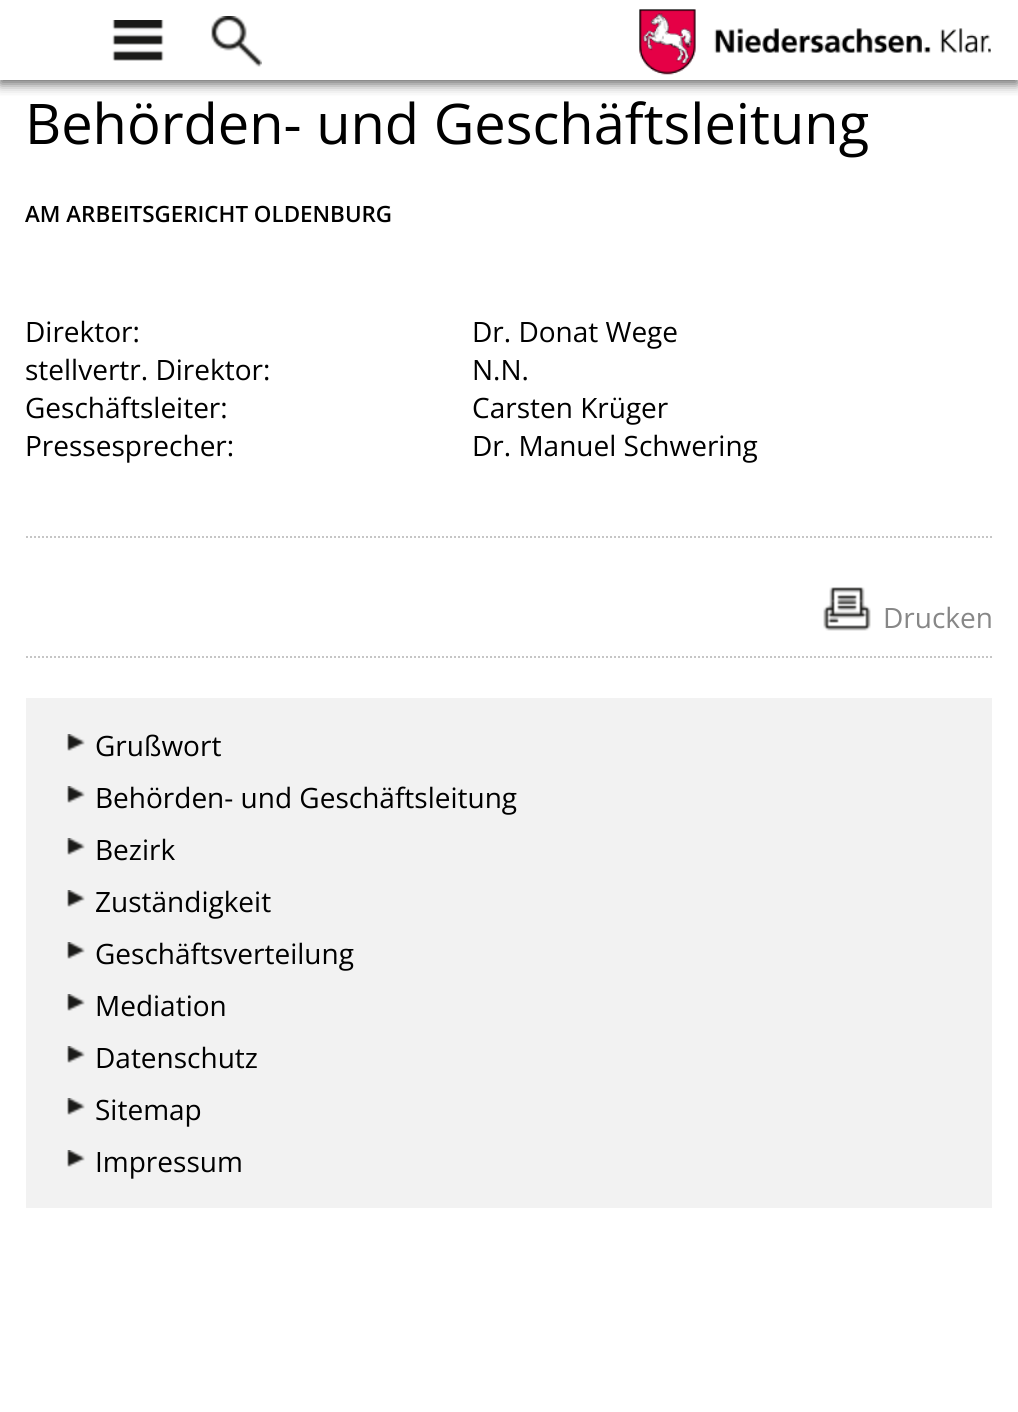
#include <cairo/cairo.h>
#include <math.h>
#include <stddef.h>

typedef struct { double x, y; const char *s; } line_t;
static cairo_t *cr;

static void rgb(unsigned color)
{
	cairo_set_source_rgb(cr, (color >> 16) / 255.0, (color >> 8 & 255) / 255.0, (color & 255) / 255.0);
}

static void rrect(double x, double y, double w, double h, double r)
{
	cairo_new_sub_path(cr);
	cairo_arc(cr, x + w - r, y + h - r, r, 0, M_PI / 2);
	cairo_arc(cr, x + r, y + h - r, r, M_PI / 2, M_PI);
	cairo_arc(cr, x + r, y + r, r, M_PI, 1.5 * M_PI);
	cairo_arc(cr, x + w - r, y + r, r, 1.5 * M_PI, 2 * M_PI);
	cairo_close_path(cr);
}

static void soft_shadow(double x, double y, double w, double h, double r, double blur, double alpha)
{
	cairo_push_group_with_content(cr, CAIRO_CONTENT_ALPHA);
	cairo_set_operator(cr, CAIRO_OPERATOR_SOURCE);
	for (int i = 15; i >= -15 && fmin(w, h) + blur * i / 3 > 0; i -= 2) {
		double e = blur * i / 6;
		cairo_set_source_rgba(cr, 0, 0, 0, alpha * erfc((i - 1) / 8.5) / 2);
		rrect(x - e, y - e, w + 2 * e, h + 2 * e, fmax(0, fmin(r + e + blur * .6, fmin(w, h) / 2 + e)));
		cairo_fill(cr);
	}
	cairo_pattern_t *soft = cairo_pop_group(cr);
	cairo_mask(cr, soft);
	cairo_pattern_destroy(soft);
}

static void image(const char *path, double x, double y, double w, double h)
{
	cairo_surface_t *image = cairo_image_surface_create_from_png(path);
	cairo_save(cr);
	cairo_set_source_surface(cr, image, x, y);
	cairo_rectangle(cr, x, y, w, h);
	cairo_fill(cr);
	cairo_restore(cr);
	cairo_surface_destroy(image);
}

int main(void) {
	cairo_surface_t *surface = cairo_image_surface_create(CAIRO_FORMAT_RGB24, 1018, 1412);
	cr = cairo_create(surface);
	cairo_font_options_t *options = cairo_font_options_create();
	cairo_font_options_set_hint_metrics(options, CAIRO_HINT_METRICS_OFF);
	cairo_font_options_set_hint_style(options, CAIRO_HINT_STYLE_NONE);
	cairo_set_font_options(cr, options);
	cairo_set_miter_limit(cr, 4);
	rgb(0xffffff);
	cairo_paint(cr);
	cairo_save(cr);
	cairo_rectangle(cr, 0, 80, 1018, 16);
	cairo_clip(cr);
	rgb(0x666666);
	soft_shadow(0, 4, 1018, 80, 0, 6, 1);
	cairo_restore(cr);
	image("img/1.png", 112, 20, 52, 41);
	image("img/2.png", 211, 16, 51, 51);
	image("img/3.png", 639, 9, 283, 66);
	image("img/4.png", 924, 28, 67, 25);
	cairo_new_path(cr);
	cairo_move_to(cr, 26, 537);
	cairo_line_to(cr, 992, 537);
	rgb(0xc6c6c6);
	cairo_set_dash(cr, (double[]){2, 2}, 2, 0);
	cairo_stroke(cr);
	image("img/5.png", 823, 587, 48, 44);
	rgb(0xf2f2f2);
	cairo_rectangle(cr, 26, 698, 966, 510);
	cairo_fill(cr);
	cairo_new_path(cr);
	cairo_move_to(cr, 26, 657);
	cairo_line_to(cr, 992, 657);
	rgb(0xc6c6c6);
	cairo_stroke(cr);
	image("img/6.png", 67, 734, 18, 17);
	image("img/6.png", 67, 786, 18, 17);
	image("img/6.png", 67, 838, 18, 17);
	image("img/6.png", 67, 890, 18, 17);
	image("img/6.png", 67, 942, 18, 17);
	image("img/6.png", 67, 994, 18, 17);
	image("img/6.png", 67, 1046, 18, 17);
	image("img/6.png", 67, 1098, 18, 17);
	image("img/6.png", 67, 1150, 18, 17);
	cairo_select_font_face(cr, "Open Sans", CAIRO_FONT_SLANT_NORMAL, CAIRO_FONT_WEIGHT_NORMAL);
	cairo_set_font_size(cr, 56);
	rgb(0x000000);
	cairo_move_to(cr, 25, 144);
	cairo_show_text(cr, "Behörden- und Geschäftsleitung");
	cairo_select_font_face(cr, "Open Sans SemiBold", CAIRO_FONT_SLANT_NORMAL, CAIRO_FONT_WEIGHT_NORMAL);
	cairo_set_font_size(cr, 22.4);
	cairo_move_to(cr, 25, 222);
	cairo_show_text(cr, "AM ARBEITSGERICHT OLDENBURG");
	cairo_select_font_face(cr, "Open Sans", CAIRO_FONT_SLANT_NORMAL, CAIRO_FONT_WEIGHT_NORMAL);
	cairo_set_font_size(cr, 28);
	{
		static const line_t items[] = {
			{25, 342, "Direktor:"},
			{472, 342, "Dr. Donat Wege"},
			{25, 380, "stellvertr. Direktor:"},
			{472, 380, "N.N."},
			{25, 418, "Geschäftsleiter:"},
			{472, 418, "Carsten Krüger"},
			{25, 456, "Pressesprecher:"},
			{472, 456, "Dr. Manuel Schwering"},
		};
		for (size_t i = 0; i < sizeof items / sizeof *items; i++) {
			cairo_move_to(cr, items[i].x, items[i].y);
			cairo_show_text(cr, items[i].s);
		}
	}
	rgb(0x878787);
	cairo_move_to(cr, 883, 628);
	cairo_show_text(cr, "Drucken");
	rgb(0x000000);
	{
		static const line_t items[] = {
			{95, 756, "Grußwort"},
			{95, 808, "Behörden- und Geschäftsleitung"},
			{95, 860, "Bezirk"},
			{95, 912, "Zuständigkeit"},
			{95, 964, "Geschäftsverteilung"},
			{95, 1016, "Mediation"},
			{95, 1068, "Datenschutz"},
			{95, 1120, "Sitemap"},
			{95, 1172, "Impressum"},
		};
		for (size_t i = 0; i < sizeof items / sizeof *items; i++) {
			cairo_move_to(cr, items[i].x, items[i].y);
			cairo_show_text(cr, items[i].s);
		}
	}
	cairo_surface_write_to_png(surface, "page.png");
	cairo_font_options_destroy(options);
	cairo_destroy(cr);
	cairo_surface_destroy(surface);
	return 0;
}
